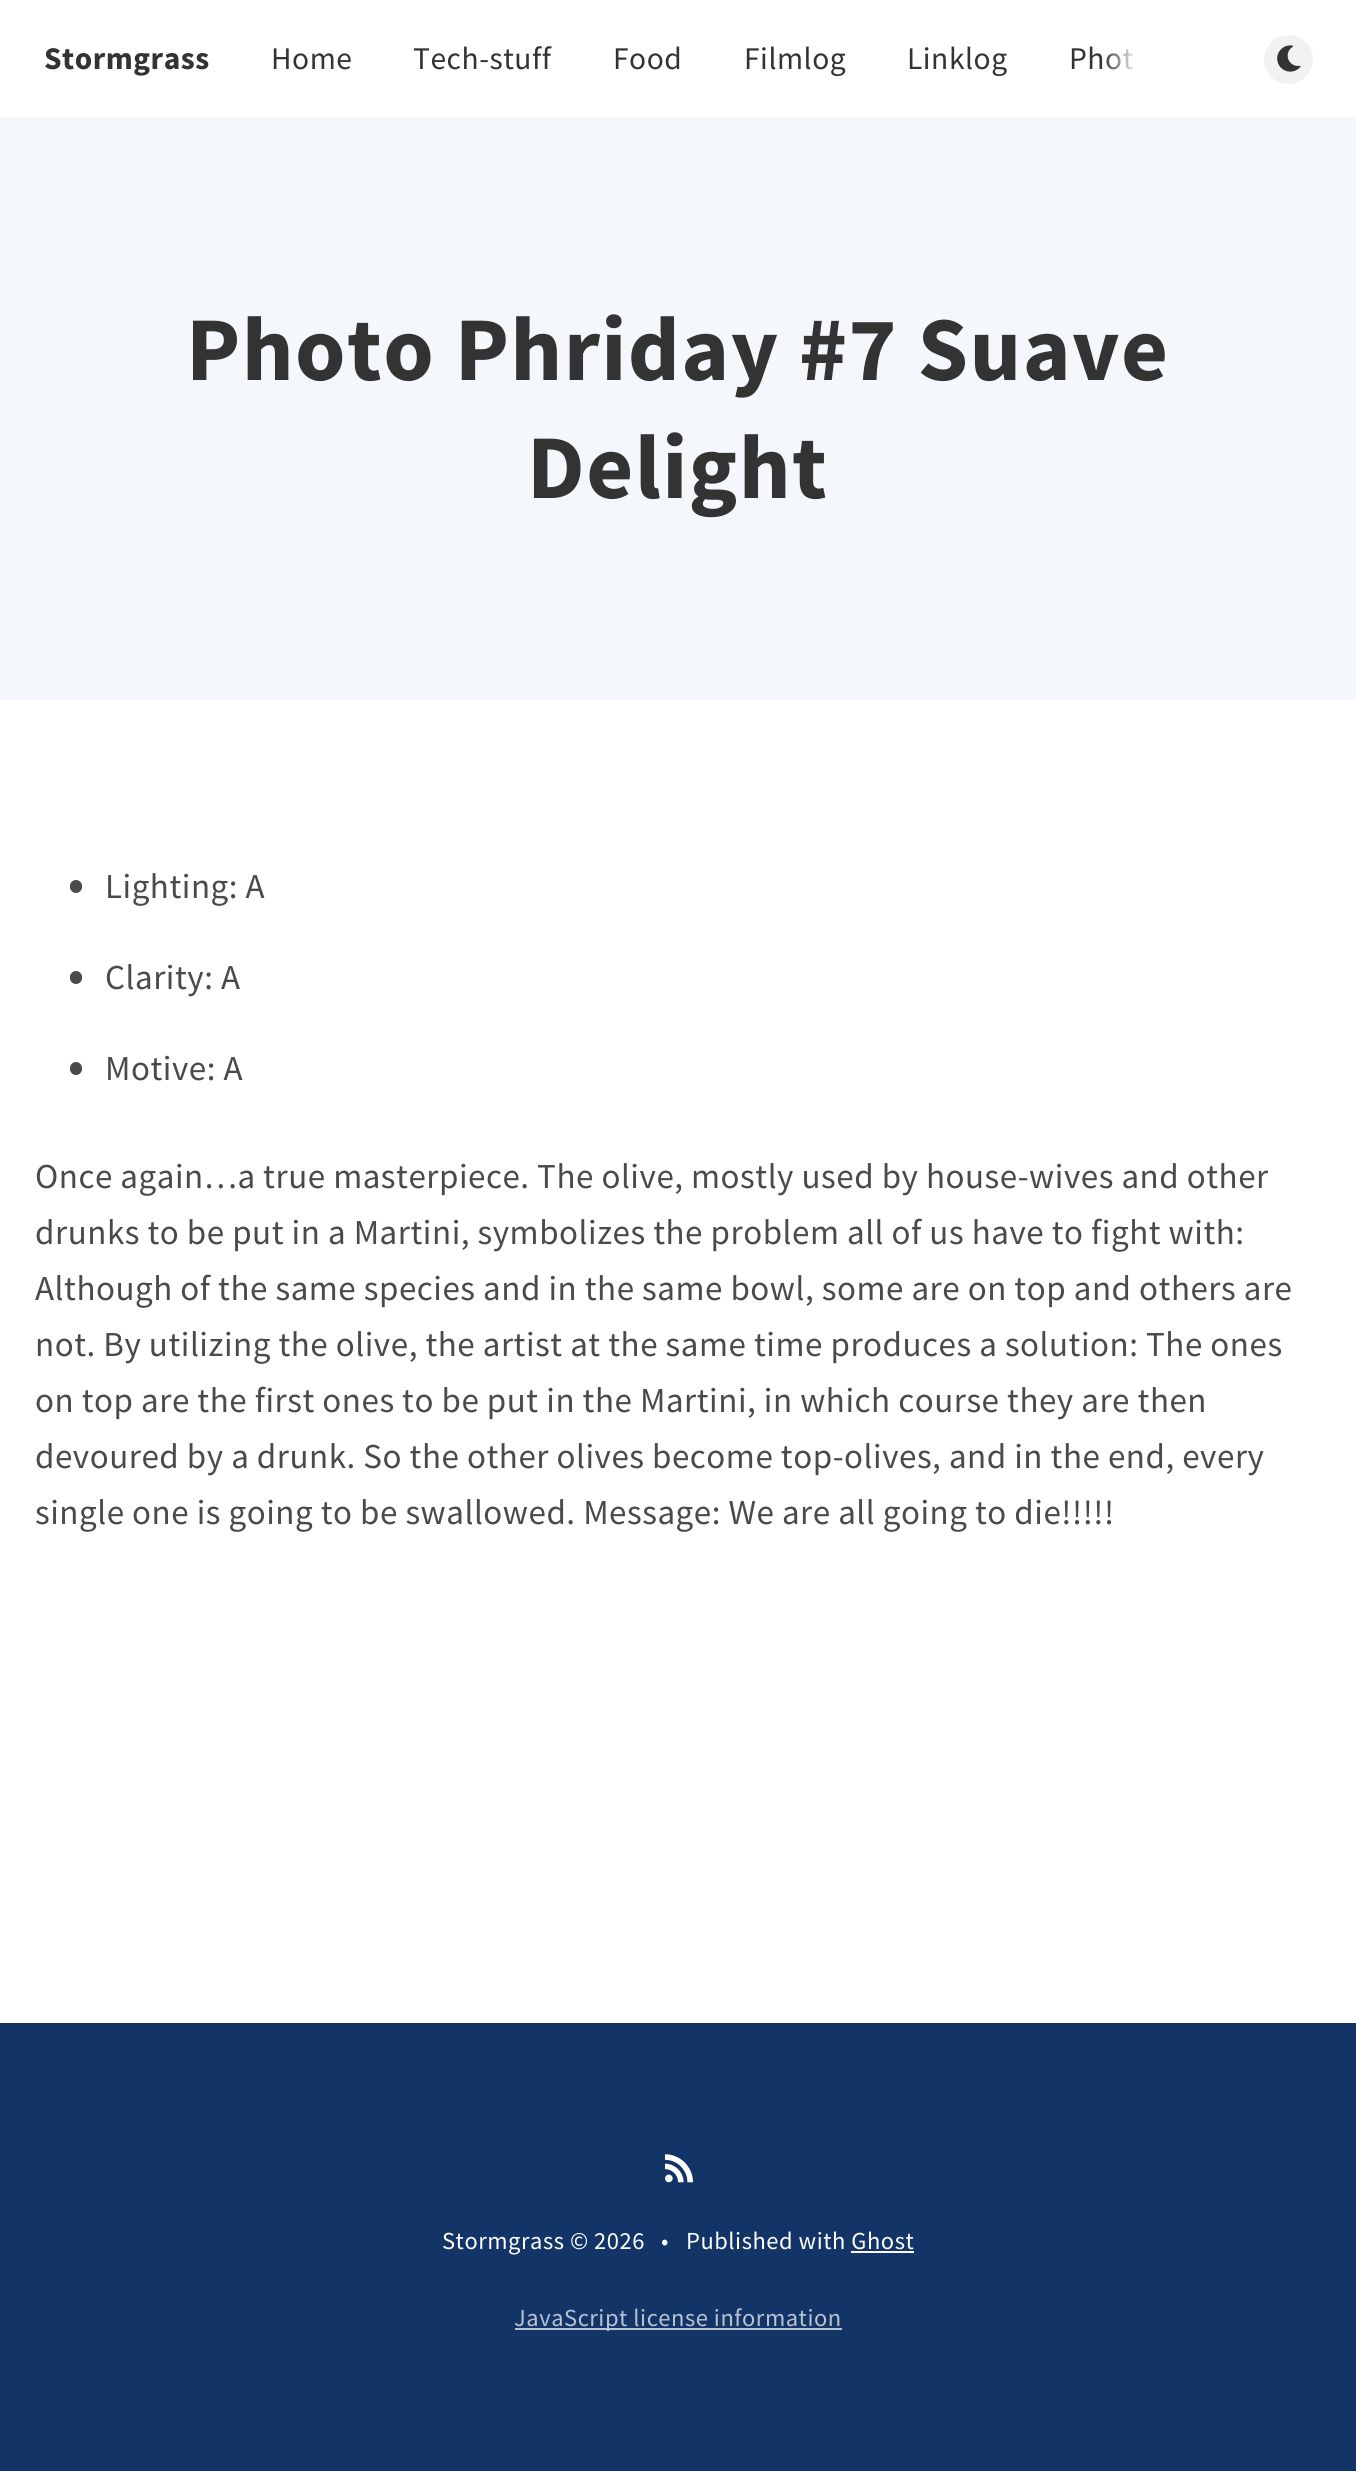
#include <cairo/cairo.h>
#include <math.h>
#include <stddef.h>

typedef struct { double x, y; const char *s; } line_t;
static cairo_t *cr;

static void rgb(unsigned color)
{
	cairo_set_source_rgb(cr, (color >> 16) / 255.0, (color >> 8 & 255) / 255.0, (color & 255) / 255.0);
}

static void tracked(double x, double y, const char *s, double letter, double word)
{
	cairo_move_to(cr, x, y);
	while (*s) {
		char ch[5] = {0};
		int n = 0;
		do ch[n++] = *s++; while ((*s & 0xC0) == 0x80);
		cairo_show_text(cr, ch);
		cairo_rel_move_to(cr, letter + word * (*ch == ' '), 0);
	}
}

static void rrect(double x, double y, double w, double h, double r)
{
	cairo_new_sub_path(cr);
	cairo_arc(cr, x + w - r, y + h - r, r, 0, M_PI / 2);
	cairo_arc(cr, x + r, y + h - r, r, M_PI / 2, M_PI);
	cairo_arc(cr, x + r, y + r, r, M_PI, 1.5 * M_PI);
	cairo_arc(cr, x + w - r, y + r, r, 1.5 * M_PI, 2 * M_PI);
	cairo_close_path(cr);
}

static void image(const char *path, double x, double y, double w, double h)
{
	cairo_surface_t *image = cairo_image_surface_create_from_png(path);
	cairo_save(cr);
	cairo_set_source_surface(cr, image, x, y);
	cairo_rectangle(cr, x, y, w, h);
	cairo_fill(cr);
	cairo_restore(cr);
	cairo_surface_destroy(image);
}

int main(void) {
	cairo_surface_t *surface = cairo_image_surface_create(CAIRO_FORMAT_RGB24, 1356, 2471);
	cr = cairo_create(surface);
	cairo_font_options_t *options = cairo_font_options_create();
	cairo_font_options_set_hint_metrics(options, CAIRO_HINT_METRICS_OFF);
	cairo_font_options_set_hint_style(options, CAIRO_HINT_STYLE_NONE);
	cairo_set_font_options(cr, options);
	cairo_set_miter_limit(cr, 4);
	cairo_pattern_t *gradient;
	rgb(0xffffff);
	cairo_paint(cr);
	rgb(0xf2f2f2);
	cairo_arc(cr, 1288.5, 59.5, 24.5, 0, 2 * M_PI);
	cairo_fill(cr);
	image("img/1.png", 1277, 45, 24, 27);
	rgb(0xf4f8fd);
	cairo_rectangle(cr, 0, 117, 1356, 583);
	cairo_fill(cr);
	rgb(0x4a4a4a);
	rrect(70, 880, 12, 13, 6);
	cairo_fill(cr);
	rrect(70, 971, 12, 13, 6);
	cairo_fill(cr);
	rrect(70, 1062, 12, 13, 6);
	cairo_fill(cr);
	rgb(0x133467);
	cairo_rectangle(cr, 0, 2023, 1356, 448);
	cairo_fill(cr);
	image("img/2.png", 665, 2154, 28, 29);
	rgb(0xffffff);
	cairo_rectangle(cr, 851, 2251, 63, 2);
	cairo_fill(cr);
	rgb(0xb8c2d1);
	cairo_rectangle(cr, 515, 2328, 327, 2);
	cairo_fill(cr);
	cairo_select_font_face(cr, "Source Sans Pro", CAIRO_FONT_SLANT_NORMAL, CAIRO_FONT_WEIGHT_BOLD);
	cairo_set_font_size(cr, 31.5);
	rgb(0x333333);
	tracked(44, 69, "Stormgrass", 0.53, 0);
	cairo_select_font_face(cr, "Source Sans Pro", CAIRO_FONT_SLANT_NORMAL, CAIRO_FONT_WEIGHT_NORMAL);
	{
		static const line_t items[] = {
			{271, 69, "Home"},
			{413, 69, "Tech-stuff"},
			{613, 69, "Food"},
			{744, 69, "Filmlog"},
			{907, 69, "Linklog"},
			{1069, 69, "Phot"},
		};
		for (size_t i = 0; i < sizeof items / sizeof *items; i++) {
			tracked(items[i].x, items[i].y, items[i].s, 0.53, 0);
		}
	}
	gradient = cairo_pattern_create_linear(1103, 60, 1138, 60);
	cairo_pattern_add_color_stop_rgba(gradient, 0, 1, 1, 1, 0);
	cairo_pattern_add_color_stop_rgba(gradient, 1, 1, 1, 1, 1);
	cairo_set_source(cr, gradient);
	cairo_pattern_destroy(gradient);
	cairo_rectangle(cr, 1106, 49, 27, 21);
	cairo_fill(cr);
	cairo_select_font_face(cr, "Source Sans Pro", CAIRO_FONT_SLANT_NORMAL, CAIRO_FONT_WEIGHT_BOLD);
	cairo_set_font_size(cr, 91);
	rgb(0x333333);
	tracked(186, 380, "Photo Phriday #7 Suave", 1.4, 0);
	tracked(527, 498, "Delight", 1.4, 0);
	cairo_select_font_face(cr, "Source Sans Pro", CAIRO_FONT_SLANT_NORMAL, CAIRO_FONT_WEIGHT_NORMAL);
	cairo_set_font_size(cr, 35);
	rgb(0x4a4a4a);
	{
		static const line_t items[] = {
			{105, 898, "Lighting: A"},
			{105, 989, "Clarity: A"},
			{105, 1080, "Motive: A"},
			{35, 1188, "Once again…a true masterpiece. The olive, mostly used by house-wives and other"},
			{35, 1244, "drunks to be put in a Martini, symbolizes the problem all of us have to fight with:"},
			{35, 1300, "Although of the same species and in the same bowl, some are on top and others are"},
			{35, 1356, "not. By utilizing the olive, the artist at the same time produces a solution: The ones"},
			{35, 1412, "on top are the first ones to be put in the Martini, in which course they are then"},
			{35, 1468, "devoured by a drunk. So the other olives become top-olives, and in the end, every"},
			{35, 1524, "single one is going to be swallowed. Message: We are all going to die!!!!!"},
		};
		for (size_t i = 0; i < sizeof items / sizeof *items; i++) {
			tracked(items[i].x, items[i].y, items[i].s, 0.53, 0);
		}
	}
	cairo_set_font_size(cr, 24.5);
	rgb(0xffffff);
	{
		static const line_t items[] = {
			{442, 2249, "Stormgrass © 2026"},
			{661, 2249, "•"},
			{686, 2249, "Published with Ghost"},
		};
		for (size_t i = 0; i < sizeof items / sizeof *items; i++) {
			tracked(items[i].x, items[i].y, items[i].s, 0.53, 0);
		}
	}
	rgb(0xb8c2d1);
	tracked(514, 2326, "JavaScript license information", 0.53, 0);
	cairo_surface_write_to_png(surface, "page.png");
	cairo_font_options_destroy(options);
	cairo_destroy(cr);
	cairo_surface_destroy(surface);
	return 0;
}
